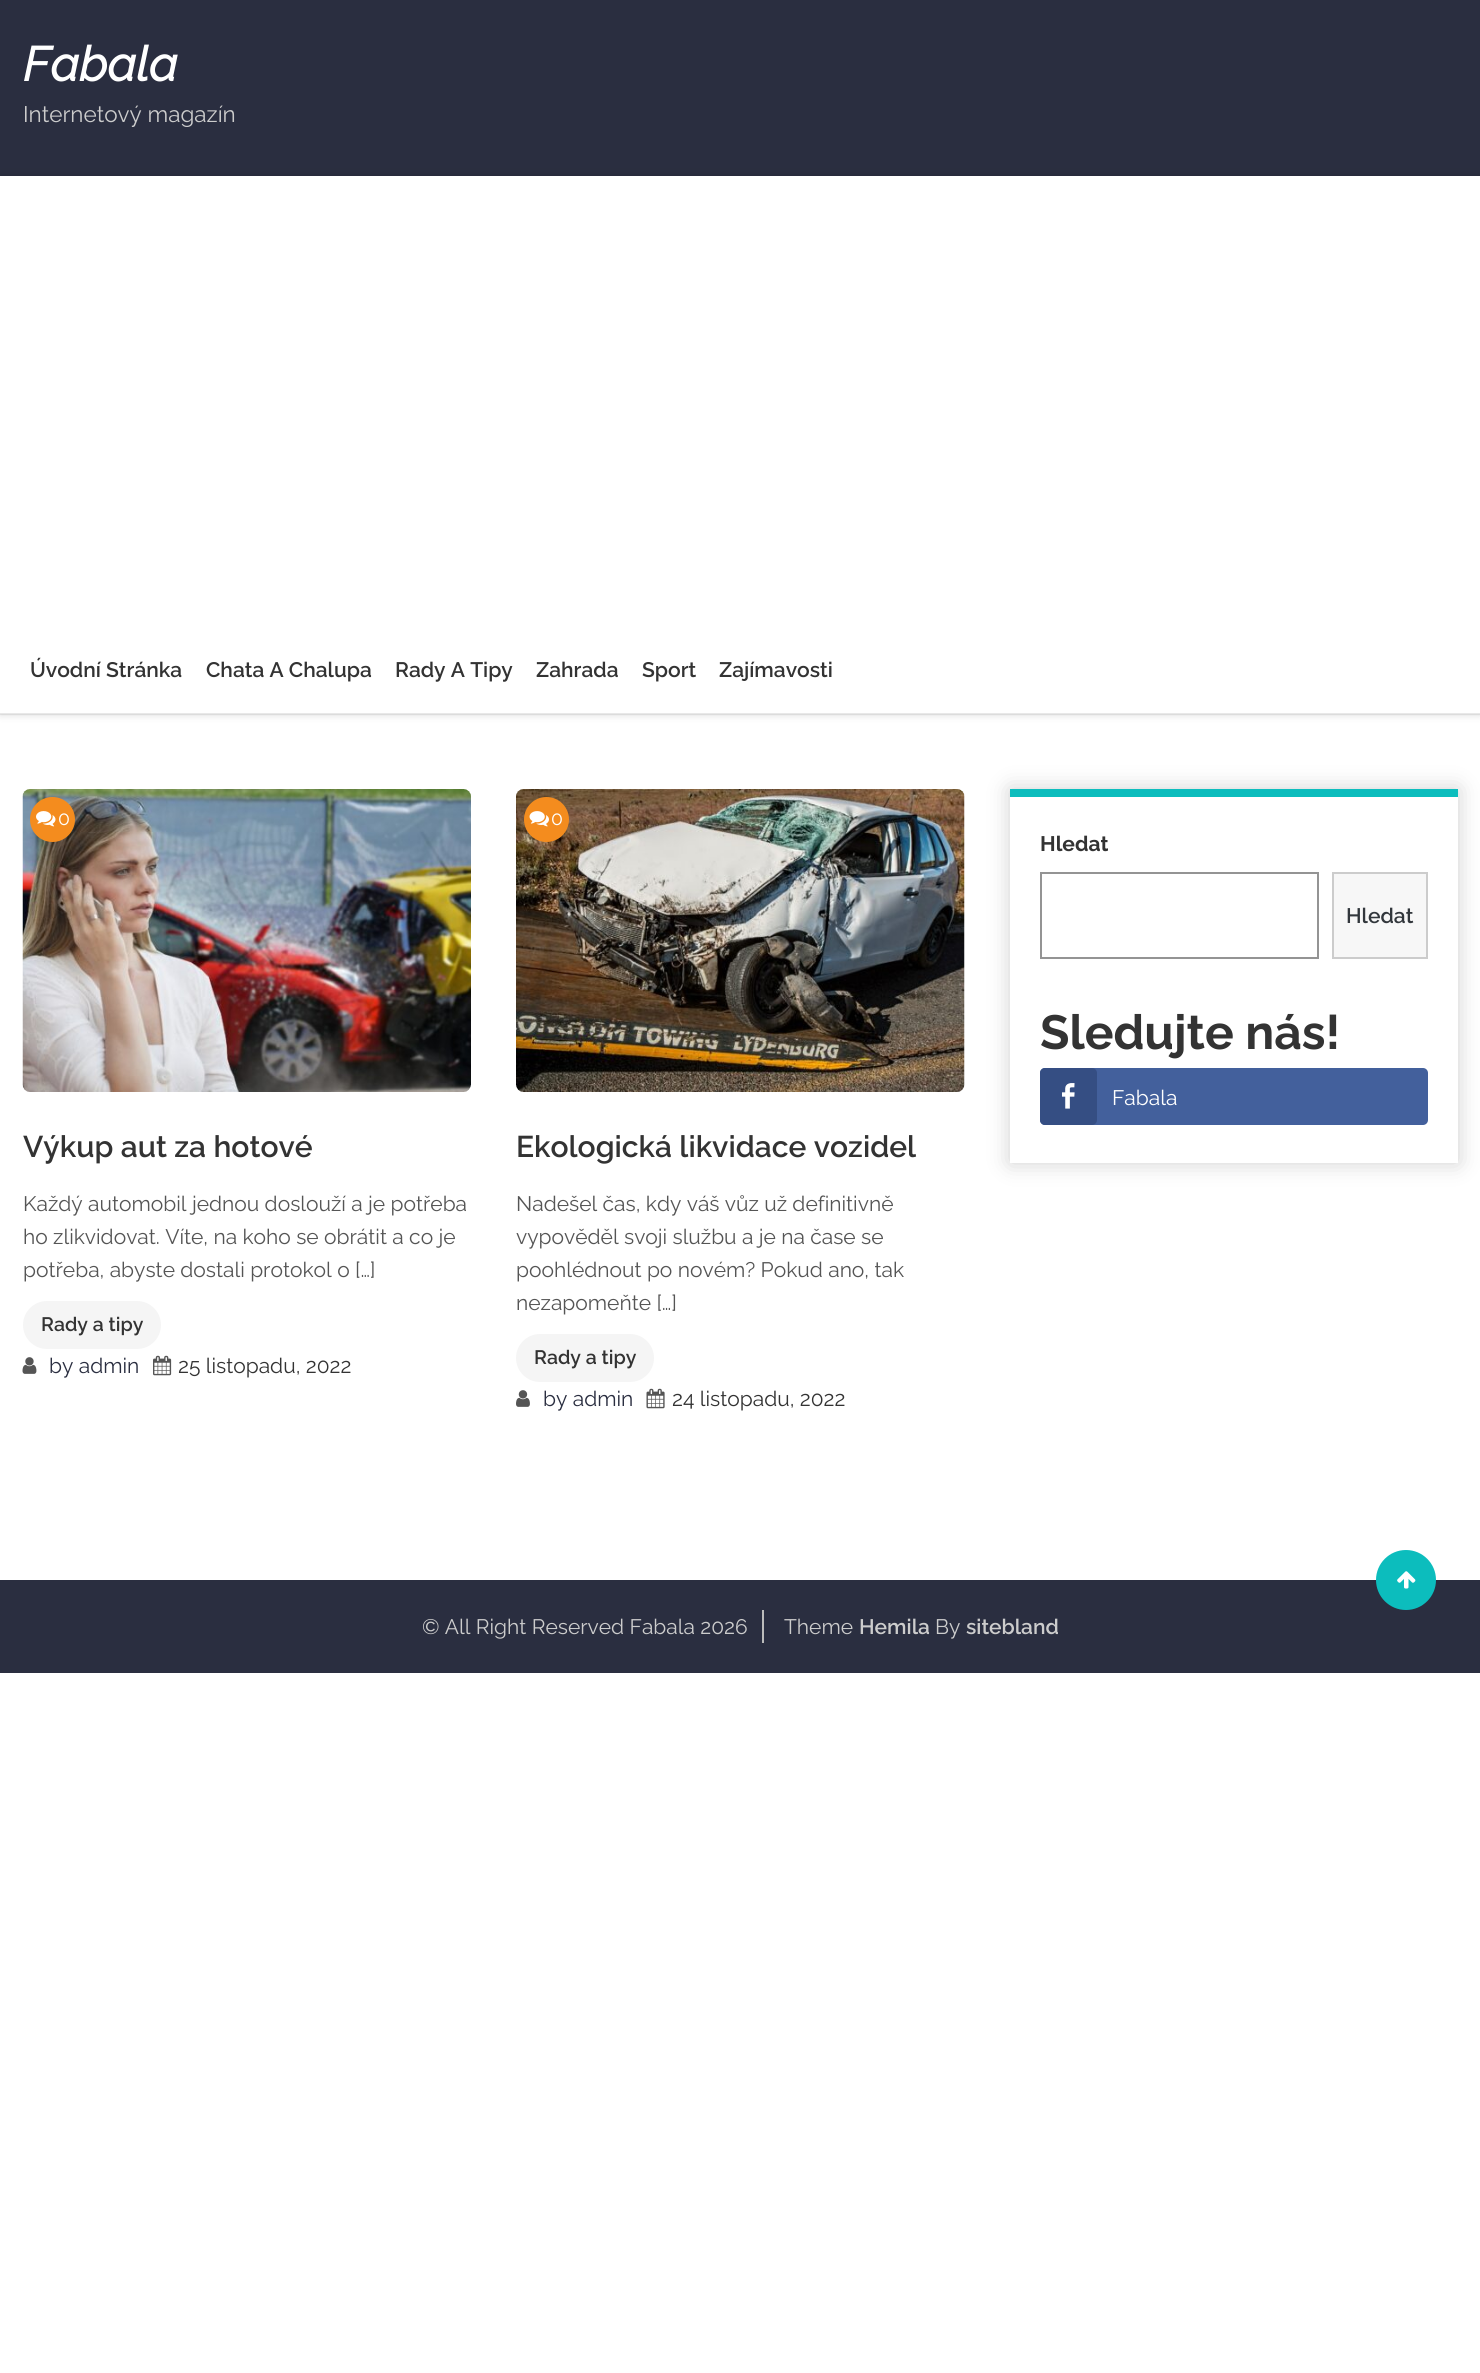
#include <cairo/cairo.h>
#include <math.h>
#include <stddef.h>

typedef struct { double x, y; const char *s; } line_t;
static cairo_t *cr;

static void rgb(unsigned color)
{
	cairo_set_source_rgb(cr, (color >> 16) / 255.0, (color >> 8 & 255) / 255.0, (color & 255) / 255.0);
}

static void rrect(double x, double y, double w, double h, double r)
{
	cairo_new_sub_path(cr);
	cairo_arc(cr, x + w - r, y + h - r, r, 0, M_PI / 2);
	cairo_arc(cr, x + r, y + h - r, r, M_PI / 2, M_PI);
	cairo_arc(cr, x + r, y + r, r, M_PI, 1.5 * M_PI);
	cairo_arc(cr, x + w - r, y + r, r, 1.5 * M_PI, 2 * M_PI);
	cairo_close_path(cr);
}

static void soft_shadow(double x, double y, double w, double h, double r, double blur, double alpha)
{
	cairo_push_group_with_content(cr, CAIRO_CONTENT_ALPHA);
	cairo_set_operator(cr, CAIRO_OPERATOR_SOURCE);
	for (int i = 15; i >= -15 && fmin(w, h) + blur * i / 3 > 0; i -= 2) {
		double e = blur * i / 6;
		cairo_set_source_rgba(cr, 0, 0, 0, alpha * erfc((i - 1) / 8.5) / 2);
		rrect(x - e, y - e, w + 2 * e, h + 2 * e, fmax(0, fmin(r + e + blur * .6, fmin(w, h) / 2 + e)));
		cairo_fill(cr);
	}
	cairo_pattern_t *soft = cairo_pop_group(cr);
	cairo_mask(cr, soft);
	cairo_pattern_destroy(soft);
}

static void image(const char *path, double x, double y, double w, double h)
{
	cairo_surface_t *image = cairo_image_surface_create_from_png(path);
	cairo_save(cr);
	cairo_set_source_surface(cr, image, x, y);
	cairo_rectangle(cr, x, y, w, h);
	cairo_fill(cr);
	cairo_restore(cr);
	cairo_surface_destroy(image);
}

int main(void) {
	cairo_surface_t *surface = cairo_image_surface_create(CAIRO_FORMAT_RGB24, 1480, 2373);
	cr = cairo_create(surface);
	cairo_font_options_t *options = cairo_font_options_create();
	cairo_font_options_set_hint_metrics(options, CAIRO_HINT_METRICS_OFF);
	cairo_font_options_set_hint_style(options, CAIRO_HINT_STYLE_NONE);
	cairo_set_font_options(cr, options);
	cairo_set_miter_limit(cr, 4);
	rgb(0xffffff);
	cairo_paint(cr);
	rgb(0x2a2e40);
	cairo_rectangle(cr, 0, 0, 1480, 176);
	cairo_fill(cr);
	rgb(0x000000);
	soft_shadow(0, 176, 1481, 538, 0, 4, 0.18);
	rgb(0xffffff);
	cairo_rectangle(cr, 0, 176, 1480, 538);
	cairo_fill(cr);
	cairo_set_source_rgba(cr, 0.8, 0.8, 0.8, 0.45);
	cairo_rectangle(cr, 0, 713, 1480, 2);
	cairo_fill(cr);
	image("img/1.png", 22, 789, 449, 303);
	rgb(0xf48c1e);
	cairo_arc(cr, 52.5, 819.5, 22.5, 0, 2 * M_PI);
	cairo_fill(cr);
	image("img/2.png", 36, 811, 20, 16);
	rgb(0xf5f5f5);
	rrect(23, 1301, 138, 48, 24);
	cairo_fill(cr);
	image("img/3.png", 22, 1357, 15, 17);
	image("img/4.png", 153, 1355, 19, 21);
	image("img/5.png", 516, 789, 449, 303);
	rgb(0xf48c1e);
	cairo_arc(cr, 546.5, 819.5, 22.5, 0, 2 * M_PI);
	cairo_fill(cr);
	image("img/6.png", 529, 811, 20, 16);
	rgb(0xf5f5f5);
	rrect(516, 1334, 138, 48, 24);
	cairo_fill(cr);
	image("img/7.png", 516, 1390, 14, 17);
	image("img/8.png", 646, 1388, 19, 21);
	rgb(0x000000);
	soft_shadow(1010, 789, 448, 374, 0, 11, 0.19);
	rgb(0xffffff);
	cairo_rectangle(cr, 1010, 797, 448, 366);
	cairo_fill(cr);
	rgb(0x0cbdbd);
	cairo_rectangle(cr, 1010, 789, 448, 8);
	cairo_fill(cr);
	cairo_rectangle(cr, 1041, 873, 277, 85);
	rgb(0x949494);
	cairo_stroke(cr);
	rgb(0xf7f7f7);
	cairo_rectangle(cr, 1333, 873, 94, 85);
	cairo_fill_preserve(cr);
	rgb(0xcccccc);
	cairo_stroke(cr);
	rgb(0x43609c);
	rrect(1040, 1068, 388, 57, 5);
	cairo_fill(cr);
	rgb(0x354e83);
	rrect(1040, 1068, 57, 57, 5);
	cairo_fill(cr);
	image("img/9.png", 1062, 1083, 13, 26);
	rgb(0x2a2e40);
	cairo_rectangle(cr, 0, 1580, 1480, 93);
	cairo_fill(cr);
	rgb(0x0cbdbd);
	cairo_arc(cr, 1406, 1580, 30, 0, 2 * M_PI);
	cairo_fill(cr);
	image("img/10.png", 1397, 1571, 19, 18);
	rgb(0xbbbbbb);
	cairo_rectangle(cr, 762, 1610, 2, 33);
	cairo_fill(cr);
	cairo_select_font_face(cr, "Raleway", CAIRO_FONT_SLANT_ITALIC, CAIRO_FONT_WEIGHT_BOLD);
	cairo_set_font_size(cr, 48);
	rgb(0xffffff);
	cairo_move_to(cr, 23, 81);
	cairo_show_text(cr, "Fabala");
	cairo_select_font_face(cr, "Raleway", CAIRO_FONT_SLANT_NORMAL, CAIRO_FONT_WEIGHT_NORMAL);
	cairo_set_font_size(cr, 22.5);
	rgb(0xcccccc);
	cairo_move_to(cr, 23, 122);
	cairo_show_text(cr, "Internetový magazín");
	cairo_select_font_face(cr, "Raleway SemiBold", CAIRO_FONT_SLANT_NORMAL, CAIRO_FONT_WEIGHT_NORMAL);
	cairo_set_font_size(cr, 21);
	rgb(0x333333);
	{
		static const line_t items[] = {
			{30, 677, "Úvodní Stránka"},
			{206, 677, "Chata A Chalupa"},
			{395, 677, "Rady A Tipy"},
			{536, 677, "Zahrada"},
			{642, 677, "Sport"},
			{719, 677, "Zajímavosti"},
		};
		for (size_t i = 0; i < sizeof items / sizeof *items; i++) {
			cairo_move_to(cr, items[i].x, items[i].y);
			cairo_show_text(cr, items[i].s);
		}
	}
	cairo_select_font_face(cr, "Raleway", CAIRO_FONT_SLANT_NORMAL, CAIRO_FONT_WEIGHT_NORMAL);
	cairo_set_font_size(cr, 19.5);
	rgb(0xffffff);
	cairo_move_to(cr, 58, 825);
	cairo_show_text(cr, "0");
	cairo_select_font_face(cr, "Raleway SemiBold", CAIRO_FONT_SLANT_NORMAL, CAIRO_FONT_WEIGHT_NORMAL);
	cairo_set_font_size(cr, 30);
	rgb(0x333333);
	cairo_move_to(cr, 23, 1157);
	cairo_show_text(cr, "Výkup aut za hotové");
	cairo_select_font_face(cr, "Raleway", CAIRO_FONT_SLANT_NORMAL, CAIRO_FONT_WEIGHT_NORMAL);
	cairo_set_font_size(cr, 21);
	rgb(0x555555);
	{
		static const line_t items[] = {
			{23, 1211, "Každý automobil jednou doslouží a je potřeba"},
			{23, 1244, "ho zlikvidovat. Víte, na koho se obrátit a co je"},
			{23, 1277, "potřeba, abyste dostali protokol o […]"},
		};
		for (size_t i = 0; i < sizeof items / sizeof *items; i++) {
			cairo_move_to(cr, items[i].x, items[i].y);
			cairo_show_text(cr, items[i].s);
		}
	}
	cairo_select_font_face(cr, "Raleway SemiBold", CAIRO_FONT_SLANT_NORMAL, CAIRO_FONT_WEIGHT_NORMAL);
	cairo_set_font_size(cr, 19.5);
	rgb(0x333333);
	cairo_move_to(cr, 41, 1331);
	cairo_show_text(cr, "Rady a tipy");
	cairo_select_font_face(cr, "Raleway", CAIRO_FONT_SLANT_NORMAL, CAIRO_FONT_WEIGHT_NORMAL);
	cairo_set_font_size(cr, 21);
	rgb(0x2a2e40);
	cairo_move_to(cr, 49, 1373);
	cairo_show_text(cr, "by admin");
	rgb(0x333333);
	cairo_move_to(cr, 178, 1373);
	cairo_show_text(cr, "25 listopadu, 2022");
	cairo_set_font_size(cr, 19.5);
	rgb(0xffffff);
	cairo_move_to(cr, 551, 825);
	cairo_show_text(cr, "0");
	cairo_select_font_face(cr, "Raleway SemiBold", CAIRO_FONT_SLANT_NORMAL, CAIRO_FONT_WEIGHT_NORMAL);
	cairo_set_font_size(cr, 30);
	rgb(0x333333);
	cairo_move_to(cr, 516, 1157);
	cairo_show_text(cr, "Ekologická likvidace vozidel");
	cairo_select_font_face(cr, "Raleway", CAIRO_FONT_SLANT_NORMAL, CAIRO_FONT_WEIGHT_NORMAL);
	cairo_set_font_size(cr, 21);
	rgb(0x555555);
	{
		static const line_t items[] = {
			{516, 1211, "Nadešel čas, kdy váš vůz už definitivně"},
			{516, 1244, "vypověděl svoji službu a je na čase se"},
			{516, 1277, "poohlédnout po novém? Pokud ano, tak"},
			{516, 1310, "nezapomeňte […]"},
		};
		for (size_t i = 0; i < sizeof items / sizeof *items; i++) {
			cairo_move_to(cr, items[i].x, items[i].y);
			cairo_show_text(cr, items[i].s);
		}
	}
	cairo_select_font_face(cr, "Raleway SemiBold", CAIRO_FONT_SLANT_NORMAL, CAIRO_FONT_WEIGHT_NORMAL);
	cairo_set_font_size(cr, 19.5);
	rgb(0x333333);
	cairo_move_to(cr, 534, 1364);
	cairo_show_text(cr, "Rady a tipy");
	cairo_select_font_face(cr, "Raleway", CAIRO_FONT_SLANT_NORMAL, CAIRO_FONT_WEIGHT_NORMAL);
	cairo_set_font_size(cr, 21);
	rgb(0x2a2e40);
	cairo_move_to(cr, 543, 1406);
	cairo_show_text(cr, "by admin");
	rgb(0x333333);
	cairo_move_to(cr, 672, 1406);
	cairo_show_text(cr, "24 listopadu, 2022");
	cairo_select_font_face(cr, "Raleway", CAIRO_FONT_SLANT_NORMAL, CAIRO_FONT_WEIGHT_BOLD);
	cairo_move_to(cr, 1040, 851);
	cairo_show_text(cr, "Hledat");
	cairo_select_font_face(cr, "Raleway SemiBold", CAIRO_FONT_SLANT_NORMAL, CAIRO_FONT_WEIGHT_NORMAL);
	rgb(0x32373c);
	cairo_move_to(cr, 1346, 923);
	cairo_show_text(cr, "Hledat");
	cairo_select_font_face(cr, "Raleway", CAIRO_FONT_SLANT_NORMAL, CAIRO_FONT_WEIGHT_BOLD);
	cairo_set_font_size(cr, 48);
	rgb(0x333333);
	cairo_move_to(cr, 1040, 1049);
	cairo_show_text(cr, "Sledujte nás!");
	cairo_select_font_face(cr, "Raleway", CAIRO_FONT_SLANT_NORMAL, CAIRO_FONT_WEIGHT_NORMAL);
	cairo_set_font_size(cr, 21);
	rgb(0xffffff);
	cairo_move_to(cr, 1112, 1105);
	cairo_show_text(cr, "Fabala");
	rgb(0xcccccc);
	cairo_move_to(cr, 422, 1634);
	cairo_show_text(cr, "© All Right Reserved Fabala 2026");
	cairo_move_to(cr, 784, 1634);
	cairo_show_text(cr, "Theme");
	cairo_select_font_face(cr, "Raleway SemiBold", CAIRO_FONT_SLANT_NORMAL, CAIRO_FONT_WEIGHT_NORMAL);
	cairo_move_to(cr, 859, 1634);
	cairo_show_text(cr, "Hemila");
	cairo_select_font_face(cr, "Raleway", CAIRO_FONT_SLANT_NORMAL, CAIRO_FONT_WEIGHT_NORMAL);
	cairo_move_to(cr, 935, 1634);
	cairo_show_text(cr, "By");
	cairo_select_font_face(cr, "Raleway SemiBold", CAIRO_FONT_SLANT_NORMAL, CAIRO_FONT_WEIGHT_NORMAL);
	cairo_move_to(cr, 966, 1634);
	cairo_show_text(cr, "sitebland");
	cairo_surface_write_to_png(surface, "page.png");
	cairo_font_options_destroy(options);
	cairo_destroy(cr);
	cairo_surface_destroy(surface);
	return 0;
}
